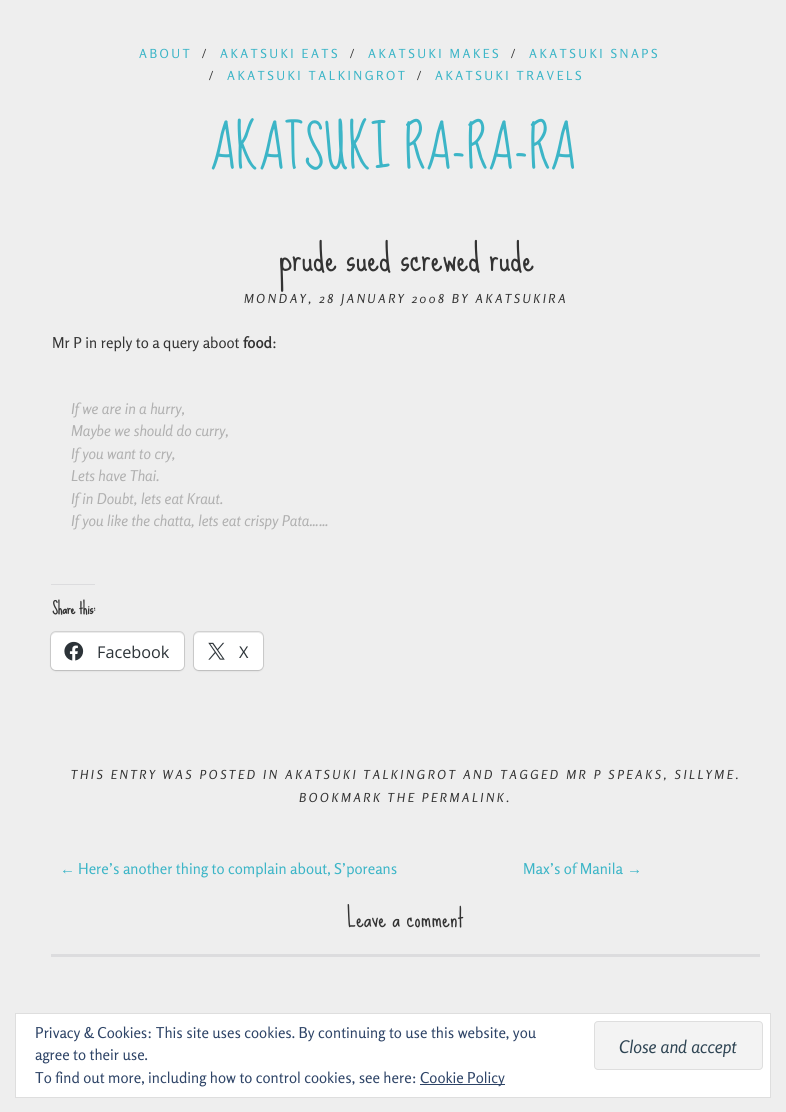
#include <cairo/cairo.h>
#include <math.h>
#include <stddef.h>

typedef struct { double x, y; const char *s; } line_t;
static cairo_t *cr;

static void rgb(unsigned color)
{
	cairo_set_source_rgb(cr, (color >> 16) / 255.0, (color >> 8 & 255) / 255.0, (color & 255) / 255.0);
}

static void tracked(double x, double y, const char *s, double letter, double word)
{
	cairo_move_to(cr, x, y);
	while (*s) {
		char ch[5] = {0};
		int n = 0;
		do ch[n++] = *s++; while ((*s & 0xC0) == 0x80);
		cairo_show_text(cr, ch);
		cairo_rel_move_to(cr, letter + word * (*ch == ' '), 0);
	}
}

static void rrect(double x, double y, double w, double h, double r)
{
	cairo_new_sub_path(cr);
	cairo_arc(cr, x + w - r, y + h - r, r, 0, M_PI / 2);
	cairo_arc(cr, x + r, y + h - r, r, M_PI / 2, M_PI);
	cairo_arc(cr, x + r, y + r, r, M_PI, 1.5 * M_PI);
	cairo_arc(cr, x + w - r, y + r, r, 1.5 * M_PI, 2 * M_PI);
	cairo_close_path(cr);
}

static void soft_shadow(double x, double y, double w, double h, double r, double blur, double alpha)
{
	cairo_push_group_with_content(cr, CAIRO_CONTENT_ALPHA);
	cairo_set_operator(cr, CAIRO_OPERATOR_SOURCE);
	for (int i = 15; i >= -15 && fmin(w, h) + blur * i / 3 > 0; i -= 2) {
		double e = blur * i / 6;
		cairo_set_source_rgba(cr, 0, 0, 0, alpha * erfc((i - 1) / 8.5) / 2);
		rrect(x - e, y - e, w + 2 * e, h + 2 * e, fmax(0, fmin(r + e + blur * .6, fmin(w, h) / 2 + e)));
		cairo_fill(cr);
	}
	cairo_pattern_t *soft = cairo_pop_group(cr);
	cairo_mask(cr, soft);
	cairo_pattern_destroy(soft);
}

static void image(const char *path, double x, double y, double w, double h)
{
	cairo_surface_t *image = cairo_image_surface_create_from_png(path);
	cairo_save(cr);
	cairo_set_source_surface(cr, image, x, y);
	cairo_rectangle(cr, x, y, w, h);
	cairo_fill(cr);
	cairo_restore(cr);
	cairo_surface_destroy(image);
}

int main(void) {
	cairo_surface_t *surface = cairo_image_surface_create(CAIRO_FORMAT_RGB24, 786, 1112);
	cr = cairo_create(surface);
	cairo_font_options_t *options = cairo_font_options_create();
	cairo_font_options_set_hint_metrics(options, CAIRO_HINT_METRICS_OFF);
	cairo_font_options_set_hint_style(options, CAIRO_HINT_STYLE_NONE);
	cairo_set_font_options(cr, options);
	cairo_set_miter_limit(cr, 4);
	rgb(0xeeeeee);
	cairo_paint(cr);
	rgb(0xdcdcde);
	cairo_rectangle(cr, 51, 584, 44, 1);
	cairo_fill(cr);
	rrect(50.5, 631.5, 134, 39, 5.5);
	rgb(0xd1d1d1);
	cairo_set_line_width(cr, 1);
	cairo_stroke(cr);
	rgb(0x000000);
	soft_shadow(51, 634, 133, 37, 5, 1, 0.12);
	rgb(0xffffff);
	rrect(51, 633, 133, 37, 5);
	cairo_fill(cr);
	image("img/1.png", 64, 641, 20, 20);
	rrect(193.5, 631.5, 70, 39, 5.5);
	rgb(0xd1d1d1);
	cairo_stroke(cr);
	rgb(0x000000);
	soft_shadow(194, 634, 69, 37, 5, 1, 0.12);
	rgb(0xffffff);
	rrect(194, 633, 69, 37, 5);
	cairo_fill(cr);
	image("img/2.png", 208, 642, 17, 18);
	rgb(0xdcdcde);
	cairo_rectangle(cr, 51, 954, 709, 3);
	cairo_fill(cr);
	rgb(0xffffff);
	cairo_rectangle(cr, 15.5, 1013.5, 755, 84);
	cairo_fill_preserve(cr);
	rgb(0xdedede);
	cairo_stroke(cr);
	rgb(0xf3f3f3);
	rrect(594.5, 1021.5, 168, 48, 3.5);
	cairo_fill_preserve(cr);
	rgb(0xdedede);
	cairo_stroke(cr);
	rgb(0x2e4467);
	cairo_rectangle(cr, 420, 1084, 85, 1);
	cairo_fill(cr);
	cairo_select_font_face(cr, "Rosario", CAIRO_FONT_SLANT_NORMAL, CAIRO_FONT_WEIGHT_NORMAL);
	cairo_set_font_size(cr, 12.5);
	rgb(0x3cb5c7);
	tracked(139, 58, "ABOUT", 2.5, 0);
	rgb(0x333333);
	tracked(202, 58, "/", 2.5, 0);
	rgb(0x3cb5c7);
	tracked(220, 58, "AKATSUKI EATS", 2.5, 0);
	rgb(0x333333);
	tracked(350, 58, "/", 2.5, 0);
	rgb(0x3cb5c7);
	tracked(368, 58, "AKATSUKI MAKES", 2.5, 0);
	rgb(0x333333);
	tracked(511, 58, "/", 2.5, 0);
	rgb(0x3cb5c7);
	tracked(529, 58, "AKATSUKI SNAPS", 2.5, 0);
	rgb(0x333333);
	tracked(209, 80, "/", 2.5, 0);
	rgb(0x3cb5c7);
	tracked(227, 80, "AKATSUKI TALKINGROT", 2.5, 0);
	rgb(0x333333);
	tracked(417, 80, "/", 2.5, 0);
	rgb(0x3cb5c7);
	tracked(435, 80, "AKATSUKI TRAVELS", 2.5, 0);
	cairo_select_font_face(cr, "Sue Ellen Francisco", CAIRO_FONT_SLANT_NORMAL, CAIRO_FONT_WEIGHT_NORMAL);
	cairo_set_font_size(cr, 52.5);
	cairo_move_to(cr, 210, 168);
	cairo_show_text(cr, "AKATSUKI RA-RA-RA");
	cairo_set_font_size(cr, 37.5);
	rgb(0x333333);
	cairo_move_to(cr, 278, 271);
	cairo_show_text(cr, "prude sued screwed rude");
	cairo_select_font_face(cr, "Rosario", CAIRO_FONT_SLANT_ITALIC, CAIRO_FONT_WEIGHT_NORMAL);
	cairo_set_font_size(cr, 12.5);
	tracked(244, 303, "MONDAY, 28 JANUARY 2008 BY AKATSUKIRA", 2.5, 0);
	cairo_select_font_face(cr, "Rosario", CAIRO_FONT_SLANT_NORMAL, CAIRO_FONT_WEIGHT_NORMAL);
	cairo_set_font_size(cr, 15);
	cairo_move_to(cr, 52, 348);
	cairo_show_text(cr, "Mr P in reply to a query aboot");
	cairo_select_font_face(cr, "Rosario", CAIRO_FONT_SLANT_NORMAL, CAIRO_FONT_WEIGHT_BOLD);
	cairo_move_to(cr, 243, 348);
	cairo_show_text(cr, "food");
	cairo_select_font_face(cr, "Rosario", CAIRO_FONT_SLANT_NORMAL, CAIRO_FONT_WEIGHT_NORMAL);
	cairo_move_to(cr, 272, 348);
	cairo_show_text(cr, ":");
	cairo_select_font_face(cr, "Rosario", CAIRO_FONT_SLANT_ITALIC, CAIRO_FONT_WEIGHT_NORMAL);
	rgb(0xb0b0b0);
	{
		static const line_t items[] = {
			{71, 414, "If we are in a hurry,"},
			{71, 436, "Maybe we should do curry,"},
			{71, 459, "If you want to cry,"},
			{71, 481, "Lets have Thai."},
			{71, 504, "If in Doubt, lets eat Kraut."},
			{71, 526, "If you like the chatta, lets eat crispy Pata……"},
		};
		for (size_t i = 0; i < sizeof items / sizeof *items; i++) {
			cairo_move_to(cr, items[i].x, items[i].y);
			cairo_show_text(cr, items[i].s);
		}
	}
	cairo_select_font_face(cr, "Sue Ellen Francisco", CAIRO_FONT_SLANT_NORMAL, CAIRO_FONT_WEIGHT_BOLD);
	rgb(0x333333);
	cairo_move_to(cr, 52, 614);
	cairo_show_text(cr, "Share this:");
	cairo_select_font_face(cr, "Open Sans", CAIRO_FONT_SLANT_NORMAL, CAIRO_FONT_WEIGHT_NORMAL);
	cairo_set_font_size(cr, 16.25);
	rgb(0x2c3338);
	cairo_move_to(cr, 97, 658);
	cairo_show_text(cr, "Facebook");
	cairo_move_to(cr, 239, 658);
	cairo_show_text(cr, "X");
	cairo_select_font_face(cr, "Rosario", CAIRO_FONT_SLANT_ITALIC, CAIRO_FONT_WEIGHT_NORMAL);
	cairo_set_font_size(cr, 12.5);
	rgb(0x333333);
	tracked(71, 779, "THIS ENTRY WAS POSTED IN AKATSUKI TALKINGROT AND TAGGED MR P SPEAKS, SILLYME.", 2.5, 0);
	tracked(299, 802, "BOOKMARK THE PERMALINK.", 2.5, 0);
	cairo_select_font_face(cr, "Liberation Sans", CAIRO_FONT_SLANT_NORMAL, CAIRO_FONT_WEIGHT_NORMAL);
	cairo_set_font_size(cr, 15);
	rgb(0x3cb5c7);
	cairo_move_to(cr, 60, 874);
	cairo_show_text(cr, "←");
	cairo_select_font_face(cr, "Rosario", CAIRO_FONT_SLANT_NORMAL, CAIRO_FONT_WEIGHT_NORMAL);
	cairo_move_to(cr, 78, 874);
	cairo_show_text(cr, "Here’s another thing to complain about, S’poreans");
	cairo_move_to(cr, 523, 874);
	cairo_show_text(cr, "Max’s of Manila");
	cairo_select_font_face(cr, "Liberation Sans", CAIRO_FONT_SLANT_NORMAL, CAIRO_FONT_WEIGHT_NORMAL);
	cairo_move_to(cr, 627, 874);
	cairo_show_text(cr, "→");
	cairo_select_font_face(cr, "Sue Ellen Francisco", CAIRO_FONT_SLANT_NORMAL, CAIRO_FONT_WEIGHT_NORMAL);
	cairo_set_font_size(cr, 25);
	rgb(0x333333);
	cairo_move_to(cr, 347, 927);
	cairo_show_text(cr, "Leave a comment");
	cairo_select_font_face(cr, "Rosario", CAIRO_FONT_SLANT_NORMAL, CAIRO_FONT_WEIGHT_NORMAL);
	cairo_set_font_size(cr, 15);
	rgb(0x2e4467);
	cairo_move_to(cr, 35, 1038);
	cairo_show_text(cr, "Privacy & Cookies: This site uses cookies. By continuing to use this website, you");
	cairo_move_to(cr, 35, 1060);
	cairo_show_text(cr, "agree to their use.");
	cairo_select_font_face(cr, "Rosario", CAIRO_FONT_SLANT_ITALIC, CAIRO_FONT_WEIGHT_NORMAL);
	cairo_set_font_size(cr, 17.5);
	rgb(0x2e4453);
	cairo_move_to(cr, 619, 1053);
	cairo_show_text(cr, "Close and accept");
	cairo_select_font_face(cr, "Rosario", CAIRO_FONT_SLANT_NORMAL, CAIRO_FONT_WEIGHT_NORMAL);
	cairo_set_font_size(cr, 15);
	rgb(0x2e4467);
	cairo_move_to(cr, 35, 1083);
	cairo_show_text(cr, "To find out more, including how to control cookies, see here:");
	cairo_move_to(cr, 420, 1083);
	cairo_show_text(cr, "Cookie Policy");
	cairo_surface_write_to_png(surface, "page.png");
	cairo_font_options_destroy(options);
	cairo_destroy(cr);
	cairo_surface_destroy(surface);
	return 0;
}
